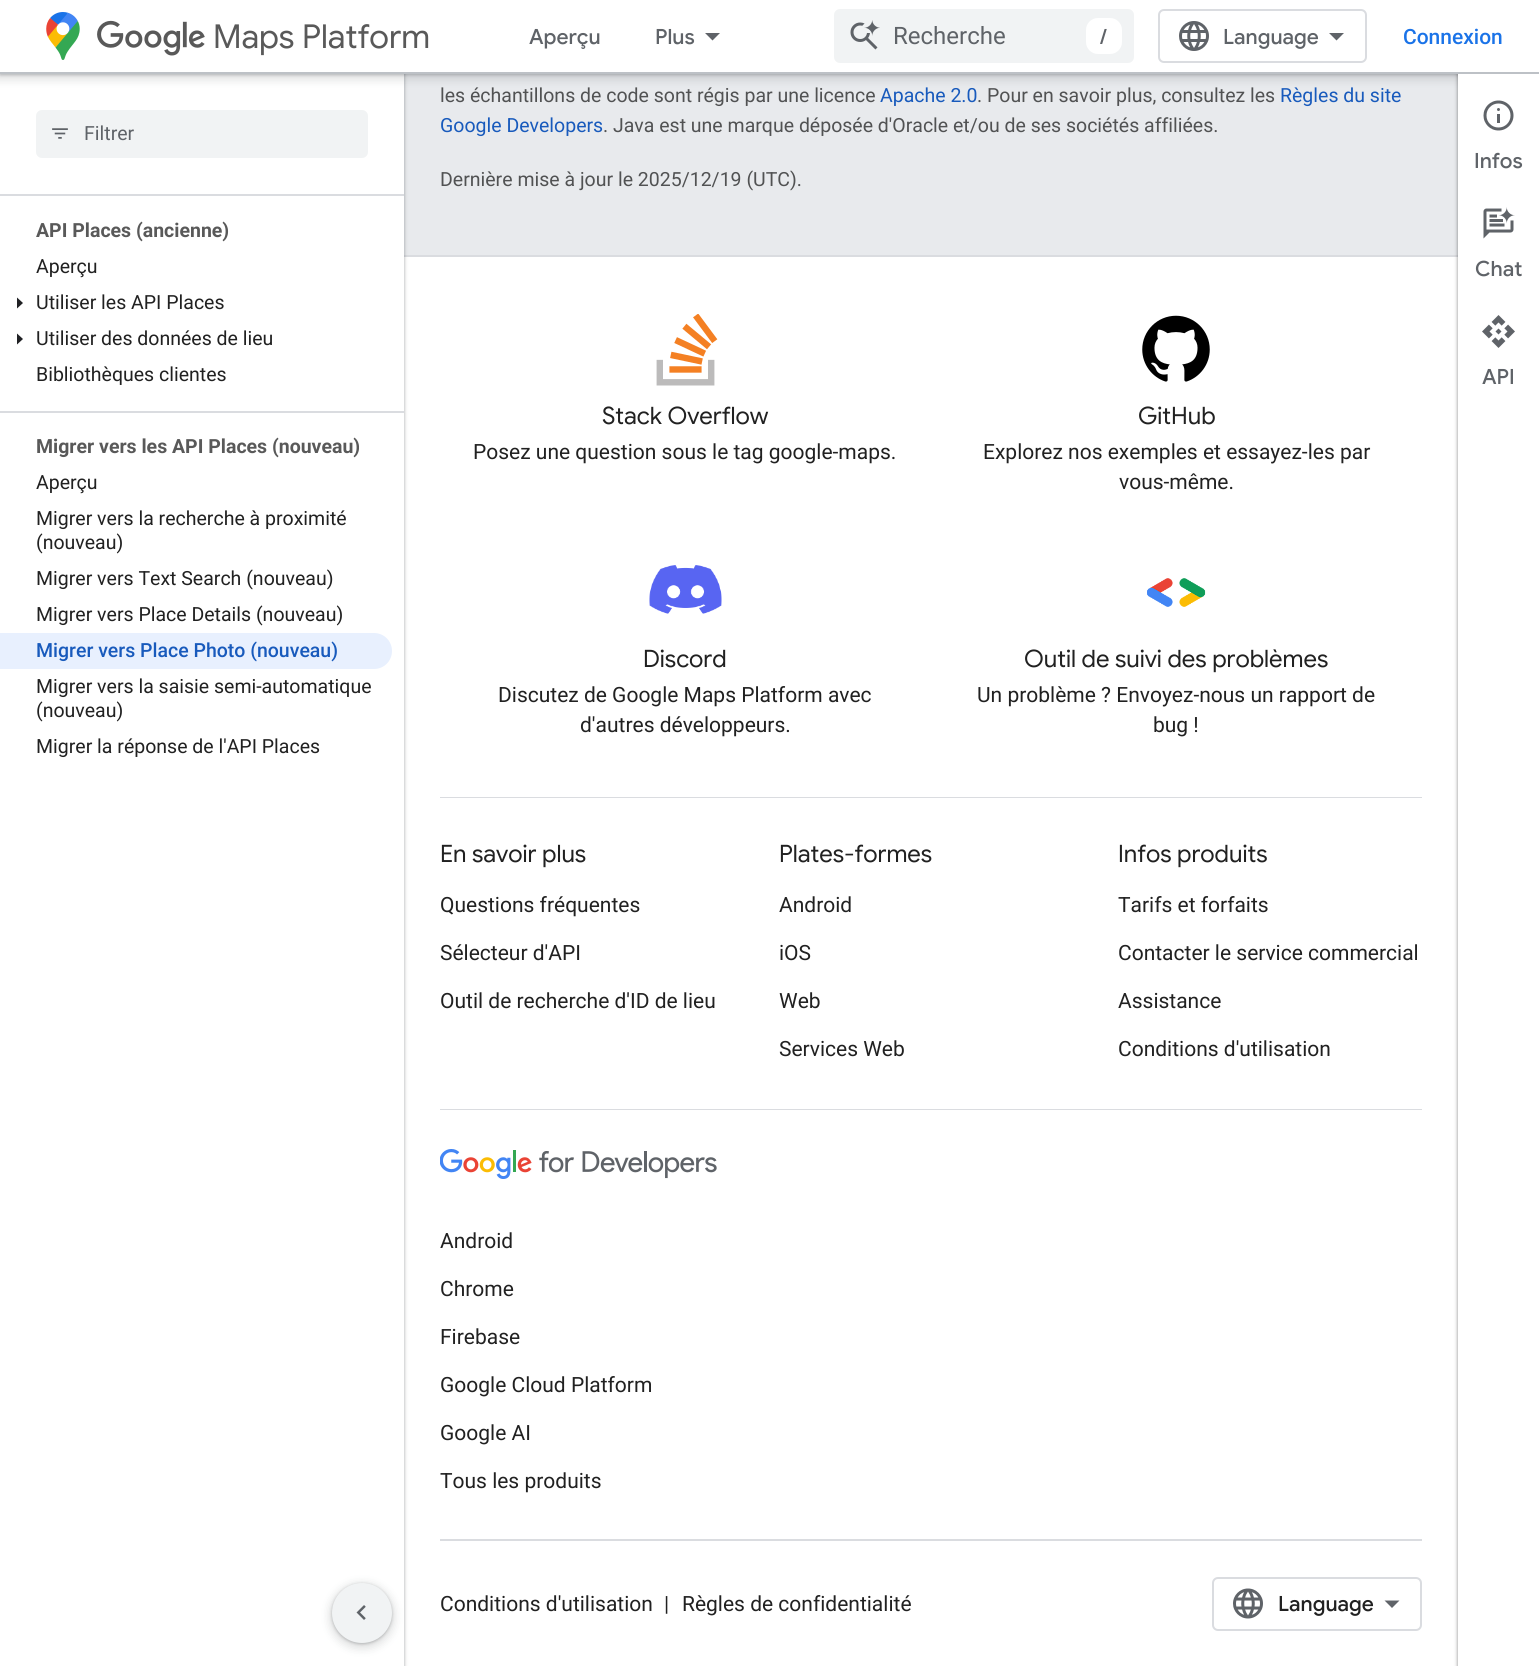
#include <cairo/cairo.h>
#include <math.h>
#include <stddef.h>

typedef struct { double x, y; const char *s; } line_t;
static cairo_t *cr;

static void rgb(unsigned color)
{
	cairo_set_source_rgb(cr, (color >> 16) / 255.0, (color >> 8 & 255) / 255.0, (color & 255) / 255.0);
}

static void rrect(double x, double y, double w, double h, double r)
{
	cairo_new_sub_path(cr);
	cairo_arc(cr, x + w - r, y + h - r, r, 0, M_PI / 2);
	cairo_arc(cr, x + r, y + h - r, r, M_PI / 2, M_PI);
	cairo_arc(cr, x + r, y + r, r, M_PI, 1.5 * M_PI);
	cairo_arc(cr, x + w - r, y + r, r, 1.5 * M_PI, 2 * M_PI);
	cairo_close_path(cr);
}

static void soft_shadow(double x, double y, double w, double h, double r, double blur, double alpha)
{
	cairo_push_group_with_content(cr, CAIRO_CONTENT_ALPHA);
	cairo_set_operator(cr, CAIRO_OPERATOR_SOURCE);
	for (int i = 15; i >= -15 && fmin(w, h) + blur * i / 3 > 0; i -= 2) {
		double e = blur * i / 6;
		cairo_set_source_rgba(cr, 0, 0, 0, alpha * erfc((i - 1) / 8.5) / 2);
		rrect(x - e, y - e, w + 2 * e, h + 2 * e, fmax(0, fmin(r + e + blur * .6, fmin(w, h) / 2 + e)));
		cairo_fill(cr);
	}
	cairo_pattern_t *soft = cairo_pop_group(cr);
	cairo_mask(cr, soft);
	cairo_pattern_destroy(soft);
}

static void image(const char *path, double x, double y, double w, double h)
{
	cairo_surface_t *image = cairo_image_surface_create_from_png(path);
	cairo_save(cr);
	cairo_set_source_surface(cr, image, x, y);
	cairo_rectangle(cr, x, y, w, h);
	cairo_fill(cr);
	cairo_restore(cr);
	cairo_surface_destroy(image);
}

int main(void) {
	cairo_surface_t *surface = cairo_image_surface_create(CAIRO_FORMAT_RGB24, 1539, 1666);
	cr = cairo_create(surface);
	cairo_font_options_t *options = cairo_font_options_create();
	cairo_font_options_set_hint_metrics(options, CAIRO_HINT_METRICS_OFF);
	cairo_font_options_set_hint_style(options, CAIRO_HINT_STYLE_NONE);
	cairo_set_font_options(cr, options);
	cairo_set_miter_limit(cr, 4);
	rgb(0xe8eaed);
	cairo_paint(cr);
	rgb(0xffffff);
	cairo_rectangle(cr, 404, 257, 1054, 1409);
	cairo_fill(cr);
	rgb(0xdadce0);
	cairo_rectangle(cr, 404, 255, 1054, 2);
	cairo_fill(cr);
	rgb(0x3c4043);
	soft_shadow(-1, 0, 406, 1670, 0, 2, 0.15);
	soft_shadow(0, 2, 404, 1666, 0, 1.5, 0.3);
	rgb(0xffffff);
	cairo_rectangle(cr, 0, 74, 404, 1592);
	cairo_fill(cr);
	rgb(0x3c4043);
	soft_shadow(-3, -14, 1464, 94, 0, 4.5, 0.15);
	soft_shadow(0, -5, 1458, 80, 0, 1.5, 0.3);
	rgb(0x000000);
	soft_shadow(1457, 72, 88, 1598, 0, 2, 0.15);
	soft_shadow(1458, 74, 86, 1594, 0, 1.5, 0.3);
	rgb(0xffffff);
	cairo_rectangle(cr, 0, 0, 1539, 72);
	cairo_fill(cr);
	rgb(0xbdc1c6);
	cairo_rectangle(cr, 0, 72, 1539, 2);
	cairo_fill(cr);
	image("img/1.png", 46, 12, 34, 48);
	image("img/2.png", 97, 20, 108, 36);
	rgb(0x5f6368);
	cairo_new_path(cr);
	cairo_move_to(cr, 705, 33);
	cairo_line_to(cr, 720, 33);
	cairo_line_to(cr, 712.5, 40.5);
	cairo_close_path(cr);
	cairo_fill(cr);
	rgb(0xf1f3f4);
	rrect(834, 9, 300, 54, 6);
	cairo_fill(cr);
	image("img/3.png", 850, 20, 30, 30);
	rgb(0xffffff);
	rrect(1086, 18, 36, 36, 12);
	cairo_fill(cr);
	rrect(1159, 10, 207, 52, 5);
	rgb(0xdadce0);
	cairo_stroke(cr);
	image("img/4.png", 1179, 21, 30, 30);
	rgb(0x5f6368);
	cairo_new_path(cr);
	cairo_move_to(cr, 1336.5, 40.5);
	cairo_line_to(cr, 1329, 33);
	cairo_line_to(cr, 1344, 33);
	cairo_close_path(cr);
	cairo_fill(cr);
	rgb(0xdadce0);
	cairo_rectangle(cr, 0, 194, 404, 2);
	cairo_fill(cr);
	rgb(0xf1f3f4);
	rrect(36, 110, 332, 48, 6);
	cairo_fill(cr);
	image("img/5.png", 52, 128, 16, 11);
	rgb(0x202124);
	cairo_new_path(cr);
	cairo_move_to(cr, 17, 308.5);
	cairo_line_to(cr, 17, 297.5);
	cairo_line_to(cr, 23, 303);
	cairo_close_path(cr);
	cairo_fill(cr);
	cairo_new_path(cr);
	cairo_move_to(cr, 17, 344.5);
	cairo_line_to(cr, 17, 333.5);
	cairo_line_to(cr, 23, 339);
	cairo_close_path(cr);
	cairo_fill(cr);
	rgb(0xdadce0);
	cairo_rectangle(cr, 0, 411, 404, 2);
	cairo_fill(cr);
	rgb(0xe8f0fe);
	cairo_new_path(cr);
	cairo_move_to(cr, 0, 633);
	cairo_line_to(cr, 374, 633);
	cairo_curve_to(cr, 384, 633, 392, 641, 392, 651);
	cairo_curve_to(cr, 392, 661, 384, 669, 374, 669);
	cairo_line_to(cr, 0, 669);
	cairo_close_path(cr);
	cairo_fill(cr);
	rgb(0xffffff);
	cairo_rectangle(cr, 1458, 74, 81, 1592);
	cairo_fill(cr);
	image("img/6.png", 1483, 100, 31, 31);
	image("img/7.png", 1483, 207, 32, 32);
	image("img/8.png", 1482, 315, 33, 33);
	rgb(0xdadce0);
	cairo_rectangle(cr, 440, 797, 982, 1);
	cairo_fill(cr);
	image("img/9.png", 656, 314, 62, 72);
	image("img/10.png", 1142, 315, 68, 67);
	image("img/11.png", 649, 565, 73, 49);
	image("img/12.png", 1147, 578, 59, 29);
	cairo_rectangle(cr, 440, 1109, 982, 1);
	cairo_fill(cr);
	cairo_rectangle(cr, 440, 1539, 982, 2);
	cairo_fill(cr);
	image("img/13.png", 440, 1149, 277, 30);
	rrect(1213, 1578, 208, 52, 5);
	cairo_stroke(cr);
	image("img/14.png", 1233, 1588, 30, 31);
	rgb(0x5f6368);
	cairo_new_path(cr);
	cairo_move_to(cr, 1392, 1608);
	cairo_line_to(cr, 1384.5, 1600.5);
	cairo_line_to(cr, 1399.5, 1600.5);
	cairo_close_path(cr);
	cairo_fill(cr);
	rgb(0x3c4043);
	soft_shadow(329, 1583, 66, 66, 33, 4.5, 0.15);
	soft_shadow(332, 1584, 60, 60, 30, 1.5, 0.3);
	rgb(0xf1f3f4);
	cairo_arc(cr, 362, 1613, 30, 0, 2 * M_PI);
	cairo_fill(cr);
	image("img/15.png", 356, 1605, 10, 15);
	cairo_select_font_face(cr, "Google Sans", CAIRO_FONT_SLANT_NORMAL, CAIRO_FONT_WEIGHT_NORMAL);
	cairo_set_font_size(cr, 33);
	rgb(0x595959);
	cairo_move_to(cr, 213, 48);
	cairo_show_text(cr, "Maps Platform");
	cairo_select_font_face(cr, "Google Sans Medium", CAIRO_FONT_SLANT_NORMAL, CAIRO_FONT_WEIGHT_NORMAL);
	cairo_set_font_size(cr, 21);
	rgb(0x5f6368);
	cairo_move_to(cr, 529, 44);
	cairo_show_text(cr, "Aperçu");
	cairo_move_to(cr, 655, 44);
	cairo_show_text(cr, "Plus");
	cairo_select_font_face(cr, "Roboto", CAIRO_FONT_SLANT_NORMAL, CAIRO_FONT_WEIGHT_NORMAL);
	cairo_set_font_size(cr, 24);
	cairo_move_to(cr, 893, 44);
	cairo_show_text(cr, "Recherche");
	cairo_select_font_face(cr, "Google Sans Medium", CAIRO_FONT_SLANT_NORMAL, CAIRO_FONT_WEIGHT_NORMAL);
	cairo_set_font_size(cr, 21);
	cairo_move_to(cr, 1100, 44);
	cairo_show_text(cr, "/");
	cairo_move_to(cr, 1223, 44);
	cairo_show_text(cr, "Language");
	cairo_select_font_face(cr, "Roboto Medium", CAIRO_FONT_SLANT_NORMAL, CAIRO_FONT_WEIGHT_NORMAL);
	rgb(0x1a73e8);
	cairo_move_to(cr, 1403, 44);
	cairo_show_text(cr, "Connexion");
	cairo_select_font_face(cr, "Roboto", CAIRO_FONT_SLANT_NORMAL, CAIRO_FONT_WEIGHT_NORMAL);
	cairo_set_font_size(cr, 19.5);
	rgb(0x5f6368);
	cairo_move_to(cr, 84, 140);
	cairo_show_text(cr, "Filtrer");
	cairo_select_font_face(cr, "Roboto", CAIRO_FONT_SLANT_NORMAL, CAIRO_FONT_WEIGHT_BOLD);
	rgb(0x595959);
	cairo_move_to(cr, 36, 237);
	cairo_show_text(cr, "API Places (ancienne)");
	cairo_select_font_face(cr, "Roboto", CAIRO_FONT_SLANT_NORMAL, CAIRO_FONT_WEIGHT_NORMAL);
	rgb(0x212121);
	{
		static const line_t items[] = {
			{36, 273, "Aperçu"},
			{36, 309, "Utiliser les API Places"},
			{36, 345, "Utiliser des données de lieu"},
			{36, 381, "Bibliothèques clientes"},
		};
		for (size_t i = 0; i < sizeof items / sizeof *items; i++) {
			cairo_move_to(cr, items[i].x, items[i].y);
			cairo_show_text(cr, items[i].s);
		}
	}
	cairo_select_font_face(cr, "Roboto", CAIRO_FONT_SLANT_NORMAL, CAIRO_FONT_WEIGHT_BOLD);
	rgb(0x595959);
	cairo_move_to(cr, 36, 453);
	cairo_show_text(cr, "Migrer vers les API Places (nouveau)");
	cairo_select_font_face(cr, "Roboto", CAIRO_FONT_SLANT_NORMAL, CAIRO_FONT_WEIGHT_NORMAL);
	rgb(0x212121);
	{
		static const line_t items[] = {
			{36, 489, "Aperçu"},
			{36, 525, "Migrer vers la recherche à proximité"},
			{36, 549, "(nouveau)"},
			{36, 585, "Migrer vers Text Search (nouveau)"},
			{36, 621, "Migrer vers Place Details (nouveau)"},
		};
		for (size_t i = 0; i < sizeof items / sizeof *items; i++) {
			cairo_move_to(cr, items[i].x, items[i].y);
			cairo_show_text(cr, items[i].s);
		}
	}
	cairo_select_font_face(cr, "Roboto Medium", CAIRO_FONT_SLANT_NORMAL, CAIRO_FONT_WEIGHT_NORMAL);
	rgb(0x185abc);
	cairo_move_to(cr, 36, 657);
	cairo_show_text(cr, "Migrer vers Place Photo (nouveau)");
	cairo_select_font_face(cr, "Roboto", CAIRO_FONT_SLANT_NORMAL, CAIRO_FONT_WEIGHT_NORMAL);
	rgb(0x212121);
	{
		static const line_t items[] = {
			{36, 693, "Migrer vers la saisie semi-automatique"},
			{36, 717, "(nouveau)"},
			{36, 753, "Migrer la réponse de l'API Places"},
		};
		for (size_t i = 0; i < sizeof items / sizeof *items; i++) {
			cairo_move_to(cr, items[i].x, items[i].y);
			cairo_show_text(cr, items[i].s);
		}
	}
	rgb(0x515253);
	cairo_move_to(cr, 440, 102);
	cairo_show_text(cr, "les échantillons de code sont régis par une licence");
	rgb(0x185abc);
	cairo_move_to(cr, 880, 102);
	cairo_show_text(cr, "Apache 2.0");
	rgb(0x515253);
	cairo_move_to(cr, 977, 102);
	cairo_show_text(cr, ". Pour en savoir plus, consultez les");
	rgb(0x185abc);
	cairo_move_to(cr, 1280, 102);
	cairo_show_text(cr, "Règles du site");
	cairo_move_to(cr, 440, 132);
	cairo_show_text(cr, "Google Developers");
	rgb(0x515253);
	cairo_move_to(cr, 603, 132);
	cairo_show_text(cr, ". Java est une marque déposée d'Oracle et/ou de ses sociétés affiliées.");
	cairo_move_to(cr, 440, 186);
	cairo_show_text(cr, "Dernière mise à jour le 2025/12/19 (UTC).");
	cairo_select_font_face(cr, "Google Sans Medium", CAIRO_FONT_SLANT_NORMAL, CAIRO_FONT_WEIGHT_NORMAL);
	cairo_set_font_size(cr, 21);
	rgb(0x5f6368);
	{
		static const line_t items[] = {
			{1474, 168, "Infos"},
			{1475, 276, "Chat"},
			{1482, 384, "API"},
		};
		for (size_t i = 0; i < sizeof items / sizeof *items; i++) {
			cairo_move_to(cr, items[i].x, items[i].y);
			cairo_show_text(cr, items[i].s);
		}
	}
	cairo_select_font_face(cr, "Google Sans", CAIRO_FONT_SLANT_NORMAL, CAIRO_FONT_WEIGHT_NORMAL);
	cairo_set_font_size(cr, 24);
	rgb(0x212121);
	cairo_move_to(cr, 602, 424);
	cairo_show_text(cr, "Stack Overflow");
	cairo_select_font_face(cr, "Roboto", CAIRO_FONT_SLANT_NORMAL, CAIRO_FONT_WEIGHT_NORMAL);
	cairo_set_font_size(cr, 21);
	cairo_move_to(cr, 473, 459);
	cairo_show_text(cr, "Posez une question sous le tag google-maps.");
	cairo_select_font_face(cr, "Google Sans", CAIRO_FONT_SLANT_NORMAL, CAIRO_FONT_WEIGHT_NORMAL);
	cairo_set_font_size(cr, 24);
	cairo_move_to(cr, 1138, 424);
	cairo_show_text(cr, "GitHub");
	cairo_select_font_face(cr, "Roboto", CAIRO_FONT_SLANT_NORMAL, CAIRO_FONT_WEIGHT_NORMAL);
	cairo_set_font_size(cr, 21);
	cairo_move_to(cr, 983, 459);
	cairo_show_text(cr, "Explorez nos exemples et essayez-les par");
	cairo_move_to(cr, 1119, 489);
	cairo_show_text(cr, "vous-même.");
	cairo_select_font_face(cr, "Google Sans", CAIRO_FONT_SLANT_NORMAL, CAIRO_FONT_WEIGHT_NORMAL);
	cairo_set_font_size(cr, 24);
	cairo_move_to(cr, 643, 667);
	cairo_show_text(cr, "Discord");
	cairo_select_font_face(cr, "Roboto", CAIRO_FONT_SLANT_NORMAL, CAIRO_FONT_WEIGHT_NORMAL);
	cairo_set_font_size(cr, 21);
	cairo_move_to(cr, 498, 702);
	cairo_show_text(cr, "Discutez de Google Maps Platform avec");
	cairo_move_to(cr, 580, 732);
	cairo_show_text(cr, "d'autres développeurs.");
	cairo_select_font_face(cr, "Google Sans", CAIRO_FONT_SLANT_NORMAL, CAIRO_FONT_WEIGHT_NORMAL);
	cairo_set_font_size(cr, 24);
	cairo_move_to(cr, 1024, 667);
	cairo_show_text(cr, "Outil de suivi des problèmes");
	cairo_select_font_face(cr, "Roboto", CAIRO_FONT_SLANT_NORMAL, CAIRO_FONT_WEIGHT_NORMAL);
	cairo_set_font_size(cr, 21);
	cairo_move_to(cr, 977, 702);
	cairo_show_text(cr, "Un problème ? Envoyez-nous un rapport de");
	cairo_move_to(cr, 1153, 732);
	cairo_show_text(cr, "bug !");
	cairo_select_font_face(cr, "Google Sans", CAIRO_FONT_SLANT_NORMAL, CAIRO_FONT_WEIGHT_NORMAL);
	cairo_set_font_size(cr, 24);
	cairo_move_to(cr, 440, 862);
	cairo_show_text(cr, "En savoir plus");
	cairo_select_font_face(cr, "Roboto", CAIRO_FONT_SLANT_NORMAL, CAIRO_FONT_WEIGHT_NORMAL);
	cairo_set_font_size(cr, 21);
	{
		static const line_t items[] = {
			{440, 912, "Questions fréquentes"},
			{440, 960, "Sélecteur d'API"},
			{440, 1008, "Outil de recherche d'ID de lieu"},
		};
		for (size_t i = 0; i < sizeof items / sizeof *items; i++) {
			cairo_move_to(cr, items[i].x, items[i].y);
			cairo_show_text(cr, items[i].s);
		}
	}
	cairo_select_font_face(cr, "Google Sans", CAIRO_FONT_SLANT_NORMAL, CAIRO_FONT_WEIGHT_NORMAL);
	cairo_set_font_size(cr, 24);
	cairo_move_to(cr, 779, 862);
	cairo_show_text(cr, "Plates-formes");
	cairo_select_font_face(cr, "Roboto", CAIRO_FONT_SLANT_NORMAL, CAIRO_FONT_WEIGHT_NORMAL);
	cairo_set_font_size(cr, 21);
	{
		static const line_t items[] = {
			{779, 912, "Android"},
			{779, 960, "iOS"},
			{779, 1008, "Web"},
			{779, 1056, "Services Web"},
		};
		for (size_t i = 0; i < sizeof items / sizeof *items; i++) {
			cairo_move_to(cr, items[i].x, items[i].y);
			cairo_show_text(cr, items[i].s);
		}
	}
	cairo_select_font_face(cr, "Google Sans", CAIRO_FONT_SLANT_NORMAL, CAIRO_FONT_WEIGHT_NORMAL);
	cairo_set_font_size(cr, 24);
	cairo_move_to(cr, 1118, 862);
	cairo_show_text(cr, "Infos produits");
	cairo_select_font_face(cr, "Roboto", CAIRO_FONT_SLANT_NORMAL, CAIRO_FONT_WEIGHT_NORMAL);
	cairo_set_font_size(cr, 21);
	{
		static const line_t items[] = {
			{1118, 912, "Tarifs et forfaits"},
			{1118, 960, "Contacter le service commercial"},
			{1118, 1008, "Assistance"},
			{1118, 1056, "Conditions d'utilisation"},
			{440, 1248, "Android"},
			{440, 1296, "Chrome"},
			{440, 1344, "Firebase"},
			{440, 1392, "Google Cloud Platform"},
			{440, 1440, "Google AI"},
			{440, 1488, "Tous les produits"},
			{440, 1611, "Conditions d'utilisation"},
			{664, 1611, "|"},
			{682, 1611, "Règles de confidentialité"},
		};
		for (size_t i = 0; i < sizeof items / sizeof *items; i++) {
			cairo_move_to(cr, items[i].x, items[i].y);
			cairo_show_text(cr, items[i].s);
		}
	}
	cairo_select_font_face(cr, "Google Sans Medium", CAIRO_FONT_SLANT_NORMAL, CAIRO_FONT_WEIGHT_NORMAL);
	cairo_move_to(cr, 1278, 1611);
	cairo_show_text(cr, "Language");
	cairo_surface_write_to_png(surface, "page.png");
	cairo_font_options_destroy(options);
	cairo_destroy(cr);
	cairo_surface_destroy(surface);
	return 0;
}
